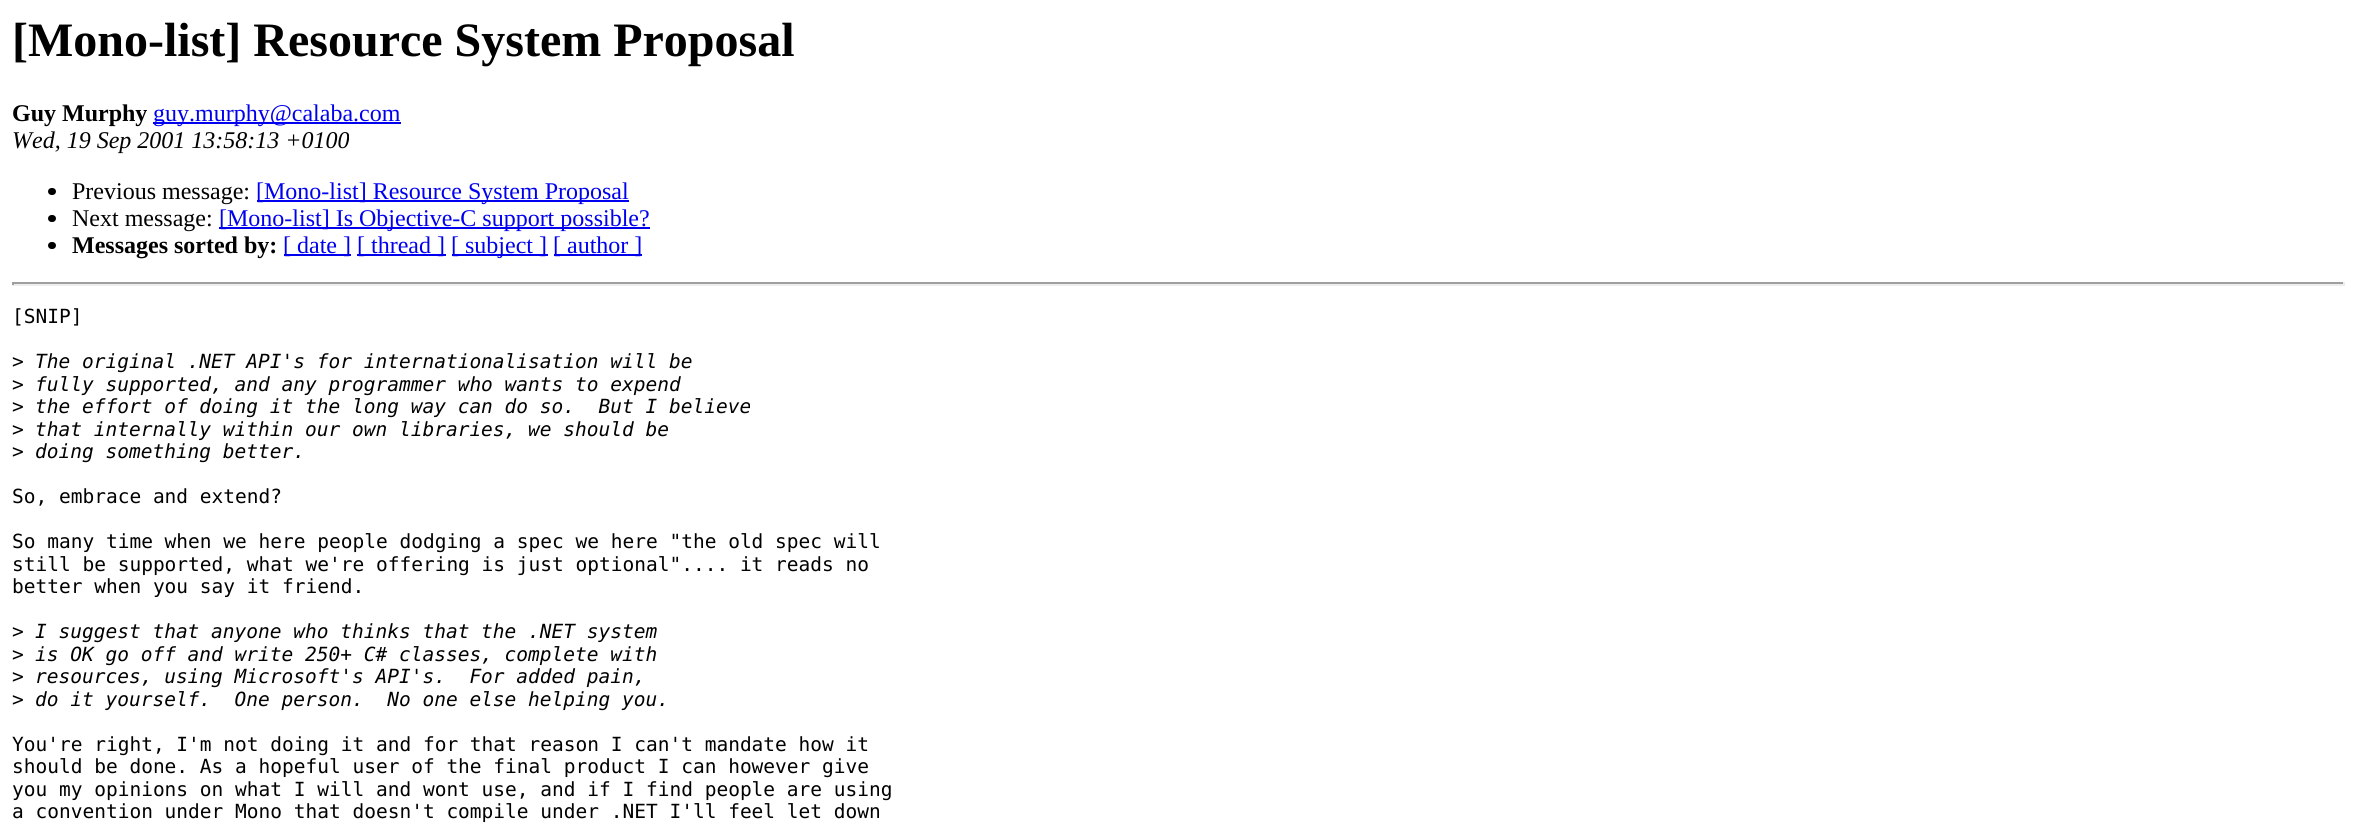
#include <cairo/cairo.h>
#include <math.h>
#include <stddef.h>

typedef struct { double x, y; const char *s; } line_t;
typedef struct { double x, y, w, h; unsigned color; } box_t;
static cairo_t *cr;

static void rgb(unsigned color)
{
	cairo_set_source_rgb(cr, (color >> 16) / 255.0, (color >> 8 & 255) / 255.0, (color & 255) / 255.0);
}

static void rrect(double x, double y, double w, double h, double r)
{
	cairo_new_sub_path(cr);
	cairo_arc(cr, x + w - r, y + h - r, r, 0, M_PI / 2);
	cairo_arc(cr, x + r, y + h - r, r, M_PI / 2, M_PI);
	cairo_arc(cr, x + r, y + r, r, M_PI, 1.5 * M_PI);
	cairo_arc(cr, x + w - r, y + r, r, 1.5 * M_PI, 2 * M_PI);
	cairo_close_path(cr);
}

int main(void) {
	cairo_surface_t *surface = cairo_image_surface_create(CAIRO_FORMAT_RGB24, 2356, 831);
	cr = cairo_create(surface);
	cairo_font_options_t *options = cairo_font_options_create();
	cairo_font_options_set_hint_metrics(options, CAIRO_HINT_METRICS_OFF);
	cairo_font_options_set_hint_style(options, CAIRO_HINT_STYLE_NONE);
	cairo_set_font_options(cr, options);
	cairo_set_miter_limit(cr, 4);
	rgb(0xffffff);
	cairo_paint(cr);
	rgb(0x0000ee);
	cairo_rectangle(cr, 153, 122, 248, 2);
	cairo_fill(cr);
	rgb(0x000000);
	rrect(48, 188, 8, 7, 3.5);
	cairo_fill(cr);
	rgb(0x0000ee);
	cairo_rectangle(cr, 257, 200, 372, 2);
	cairo_fill(cr);
	rgb(0x000000);
	rrect(48, 215, 8, 7, 3.5);
	cairo_fill(cr);
	rgb(0x0000ee);
	cairo_rectangle(cr, 219, 227, 431, 2);
	cairo_fill(cr);
	rgb(0x000000);
	rrect(48, 242, 8, 7, 3.5);
	cairo_fill(cr);
	{
		static const box_t items[] = {
			{284, 254, 67, 2, 0x0000ee},
			{357, 254, 89, 2, 0x0000ee},
			{452, 254, 96, 2, 0x0000ee},
			{554, 254, 88, 2, 0x0000ee},
			{12, 282, 2333, 2, 0x9f9f9f},
			{2343, 282, 2, 3, 0xeeeeee},
			{12, 284, 2333, 2, 0xeeeeee},
			{12, 282, 2, 3, 0x9f9f9f},
		};
		for (size_t i = 0; i < sizeof items / sizeof *items; i++) {
			rgb(items[i].color);
			cairo_rectangle(cr, items[i].x, items[i].y, items[i].w, items[i].h);
			cairo_fill(cr);
		}
	}
	cairo_select_font_face(cr, "Liberation Serif", CAIRO_FONT_SLANT_NORMAL, CAIRO_FONT_WEIGHT_BOLD);
	cairo_set_font_size(cr, 48);
	rgb(0x000000);
	cairo_move_to(cr, 12, 56);
	cairo_show_text(cr, "[Mono-list] Resource System Proposal");
	cairo_set_font_size(cr, 24);
	cairo_move_to(cr, 12, 121);
	cairo_show_text(cr, "Guy Murphy");
	cairo_select_font_face(cr, "Liberation Serif", CAIRO_FONT_SLANT_NORMAL, CAIRO_FONT_WEIGHT_NORMAL);
	rgb(0x0000ee);
	cairo_move_to(cr, 153, 121);
	cairo_show_text(cr, "guy.murphy@calaba.com");
	cairo_select_font_face(cr, "Liberation Serif", CAIRO_FONT_SLANT_ITALIC, CAIRO_FONT_WEIGHT_NORMAL);
	rgb(0x000000);
	cairo_move_to(cr, 12, 148);
	cairo_show_text(cr, "Wed, 19 Sep 2001 13:58:13 +0100");
	cairo_select_font_face(cr, "Liberation Serif", CAIRO_FONT_SLANT_NORMAL, CAIRO_FONT_WEIGHT_NORMAL);
	cairo_move_to(cr, 72, 199);
	cairo_show_text(cr, "Previous message:");
	rgb(0x0000ee);
	cairo_move_to(cr, 256, 199);
	cairo_show_text(cr, "[Mono-list] Resource System Proposal");
	rgb(0x000000);
	cairo_move_to(cr, 72, 226);
	cairo_show_text(cr, "Next message:");
	rgb(0x0000ee);
	cairo_move_to(cr, 219, 226);
	cairo_show_text(cr, "[Mono-list] Is Objective-C support possible?");
	cairo_select_font_face(cr, "Liberation Serif", CAIRO_FONT_SLANT_NORMAL, CAIRO_FONT_WEIGHT_BOLD);
	rgb(0x000000);
	cairo_move_to(cr, 72, 253);
	cairo_show_text(cr, "Messages sorted by:");
	cairo_select_font_face(cr, "Liberation Serif", CAIRO_FONT_SLANT_NORMAL, CAIRO_FONT_WEIGHT_NORMAL);
	rgb(0x0000ee);
	{
		static const line_t items[] = {
			{283, 253, "[ date ]"},
			{357, 253, "[ thread ]"},
			{451, 253, "[ subject ]"},
			{553, 253, "[ author ]"},
		};
		for (size_t i = 0; i < sizeof items / sizeof *items; i++) {
			cairo_move_to(cr, items[i].x, items[i].y);
			cairo_show_text(cr, items[i].s);
		}
	}
	cairo_select_font_face(cr, "DejaVu Sans Mono", CAIRO_FONT_SLANT_NORMAL, CAIRO_FONT_WEIGHT_NORMAL);
	cairo_set_font_size(cr, 19.5);
	rgb(0x000000);
	cairo_move_to(cr, 12, 323);
	cairo_show_text(cr, "[SNIP]");
	cairo_move_to(cr, 12, 368);
	cairo_show_text(cr, ">");
	cairo_select_font_face(cr, "DejaVu Sans Mono", CAIRO_FONT_SLANT_ITALIC, CAIRO_FONT_WEIGHT_NORMAL);
	cairo_move_to(cr, 35, 368);
	cairo_show_text(cr, "The original .NET API's for internationalisation will be");
	cairo_select_font_face(cr, "DejaVu Sans Mono", CAIRO_FONT_SLANT_NORMAL, CAIRO_FONT_WEIGHT_NORMAL);
	cairo_move_to(cr, 12, 391);
	cairo_show_text(cr, ">");
	cairo_select_font_face(cr, "DejaVu Sans Mono", CAIRO_FONT_SLANT_ITALIC, CAIRO_FONT_WEIGHT_NORMAL);
	cairo_move_to(cr, 35, 391);
	cairo_show_text(cr, "fully supported, and any programmer who wants to expend");
	cairo_select_font_face(cr, "DejaVu Sans Mono", CAIRO_FONT_SLANT_NORMAL, CAIRO_FONT_WEIGHT_NORMAL);
	cairo_move_to(cr, 12, 413);
	cairo_show_text(cr, ">");
	cairo_select_font_face(cr, "DejaVu Sans Mono", CAIRO_FONT_SLANT_ITALIC, CAIRO_FONT_WEIGHT_NORMAL);
	cairo_move_to(cr, 35, 413);
	cairo_show_text(cr, "the effort of doing it the long way can do so.  But I believe");
	cairo_select_font_face(cr, "DejaVu Sans Mono", CAIRO_FONT_SLANT_NORMAL, CAIRO_FONT_WEIGHT_NORMAL);
	cairo_move_to(cr, 12, 436);
	cairo_show_text(cr, ">");
	cairo_select_font_face(cr, "DejaVu Sans Mono", CAIRO_FONT_SLANT_ITALIC, CAIRO_FONT_WEIGHT_NORMAL);
	cairo_move_to(cr, 35, 436);
	cairo_show_text(cr, "that internally within our own libraries, we should be");
	cairo_select_font_face(cr, "DejaVu Sans Mono", CAIRO_FONT_SLANT_NORMAL, CAIRO_FONT_WEIGHT_NORMAL);
	cairo_move_to(cr, 12, 458);
	cairo_show_text(cr, ">");
	cairo_select_font_face(cr, "DejaVu Sans Mono", CAIRO_FONT_SLANT_ITALIC, CAIRO_FONT_WEIGHT_NORMAL);
	cairo_move_to(cr, 35, 458);
	cairo_show_text(cr, "doing something better.");
	cairo_select_font_face(cr, "DejaVu Sans Mono", CAIRO_FONT_SLANT_NORMAL, CAIRO_FONT_WEIGHT_NORMAL);
	{
		static const line_t items[] = {
			{12, 503, "So, embrace and extend?"},
			{12, 548, "So many time when we here people dodging a spec we here \"the old spec will"},
			{12, 571, "still be supported, what we're offering is just optional\".... it reads no"},
			{12, 593, "better when you say it friend."},
			{12, 638, ">"},
		};
		for (size_t i = 0; i < sizeof items / sizeof *items; i++) {
			cairo_move_to(cr, items[i].x, items[i].y);
			cairo_show_text(cr, items[i].s);
		}
	}
	cairo_select_font_face(cr, "DejaVu Sans Mono", CAIRO_FONT_SLANT_ITALIC, CAIRO_FONT_WEIGHT_NORMAL);
	cairo_move_to(cr, 35, 638);
	cairo_show_text(cr, "I suggest that anyone who thinks that the .NET system");
	cairo_select_font_face(cr, "DejaVu Sans Mono", CAIRO_FONT_SLANT_NORMAL, CAIRO_FONT_WEIGHT_NORMAL);
	cairo_move_to(cr, 12, 661);
	cairo_show_text(cr, ">");
	cairo_select_font_face(cr, "DejaVu Sans Mono", CAIRO_FONT_SLANT_ITALIC, CAIRO_FONT_WEIGHT_NORMAL);
	cairo_move_to(cr, 35, 661);
	cairo_show_text(cr, "is OK go off and write 250+ C# classes, complete with");
	cairo_select_font_face(cr, "DejaVu Sans Mono", CAIRO_FONT_SLANT_NORMAL, CAIRO_FONT_WEIGHT_NORMAL);
	cairo_move_to(cr, 12, 683);
	cairo_show_text(cr, ">");
	cairo_select_font_face(cr, "DejaVu Sans Mono", CAIRO_FONT_SLANT_ITALIC, CAIRO_FONT_WEIGHT_NORMAL);
	cairo_move_to(cr, 35, 683);
	cairo_show_text(cr, "resources, using Microsoft's API's.  For added pain,");
	cairo_select_font_face(cr, "DejaVu Sans Mono", CAIRO_FONT_SLANT_NORMAL, CAIRO_FONT_WEIGHT_NORMAL);
	cairo_move_to(cr, 12, 706);
	cairo_show_text(cr, ">");
	cairo_select_font_face(cr, "DejaVu Sans Mono", CAIRO_FONT_SLANT_ITALIC, CAIRO_FONT_WEIGHT_NORMAL);
	cairo_move_to(cr, 35, 706);
	cairo_show_text(cr, "do it yourself.  One person.  No one else helping you.");
	cairo_select_font_face(cr, "DejaVu Sans Mono", CAIRO_FONT_SLANT_NORMAL, CAIRO_FONT_WEIGHT_NORMAL);
	{
		static const line_t items[] = {
			{12, 751, "You're right, I'm not doing it and for that reason I can't mandate how it"},
			{12, 773, "should be done. As a hopeful user of the final product I can however give"},
			{12, 796, "you my opinions on what I will and wont use, and if I find people are using"},
			{12, 818, "a convention under Mono that doesn't compile under .NET I'll feel let down"},
		};
		for (size_t i = 0; i < sizeof items / sizeof *items; i++) {
			cairo_move_to(cr, items[i].x, items[i].y);
			cairo_show_text(cr, items[i].s);
		}
	}
	cairo_surface_write_to_png(surface, "page.png");
	cairo_font_options_destroy(options);
	cairo_destroy(cr);
	cairo_surface_destroy(surface);
	return 0;
}
